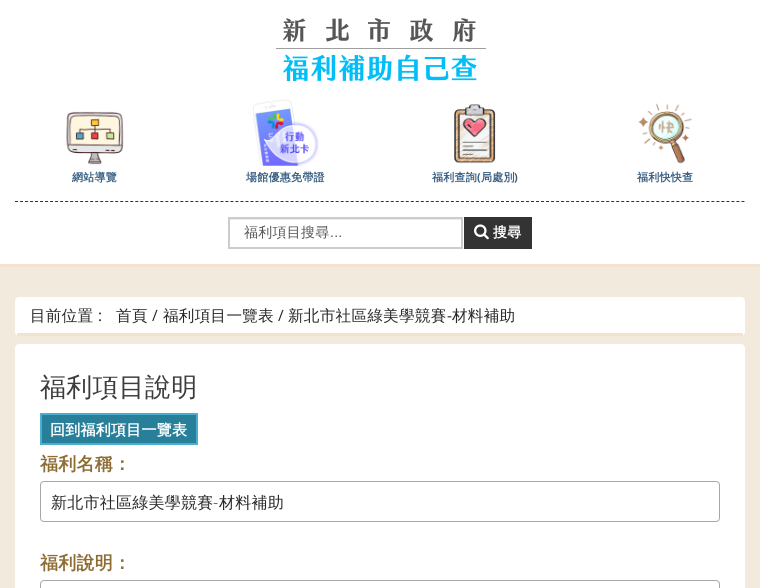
#include <cairo/cairo.h>
#include <math.h>
#include <stddef.h>

typedef struct { double x, y; const char *s; } line_t;
static cairo_t *cr;

static void rgb(unsigned color)
{
	cairo_set_source_rgb(cr, (color >> 16) / 255.0, (color >> 8 & 255) / 255.0, (color & 255) / 255.0);
}

static void tracked(double x, double y, const char *s, double letter, double word)
{
	cairo_move_to(cr, x, y);
	while (*s) {
		char ch[5] = {0};
		int n = 0;
		do ch[n++] = *s++; while ((*s & 0xC0) == 0x80);
		cairo_show_text(cr, ch);
		cairo_rel_move_to(cr, letter + word * (*ch == ' '), 0);
	}
}

static void rrect(double x, double y, double w, double h, double r)
{
	cairo_new_sub_path(cr);
	cairo_arc(cr, x + w - r, y + h - r, r, 0, M_PI / 2);
	cairo_arc(cr, x + r, y + h - r, r, M_PI / 2, M_PI);
	cairo_arc(cr, x + r, y + r, r, M_PI, 1.5 * M_PI);
	cairo_arc(cr, x + w - r, y + r, r, 1.5 * M_PI, 2 * M_PI);
	cairo_close_path(cr);
}

static void image(const char *path, double x, double y, double w, double h)
{
	cairo_surface_t *image = cairo_image_surface_create_from_png(path);
	cairo_save(cr);
	cairo_set_source_surface(cr, image, x, y);
	cairo_rectangle(cr, x, y, w, h);
	cairo_fill(cr);
	cairo_restore(cr);
	cairo_surface_destroy(image);
}

int main(void) {
	cairo_surface_t *surface = cairo_image_surface_create(CAIRO_FORMAT_RGB24, 760, 588);
	cr = cairo_create(surface);
	cairo_font_options_t *options = cairo_font_options_create();
	cairo_font_options_set_hint_metrics(options, CAIRO_HINT_METRICS_OFF);
	cairo_font_options_set_hint_style(options, CAIRO_HINT_STYLE_NONE);
	cairo_set_font_options(cr, options);
	cairo_set_miter_limit(cr, 4);
	rgb(0xf3eade);
	cairo_paint(cr);
	rgb(0xffffff);
	cairo_rectangle(cr, 0, 0, 760, 264);
	cairo_fill(cr);
	rgb(0xf2e3ce);
	cairo_rectangle(cr, 0, 264, 760, 3);
	cairo_fill(cr);
	image("img/1.png", 276, 18, 210, 63);
	image("img/2.png", 66, 111, 58, 54);
	image("img/3.png", 253, 99, 66, 67);
	image("img/4.png", 454, 104, 42, 60);
	image("img/5.png", 638, 103, 54, 61);
	cairo_new_path(cr);
	cairo_move_to(cr, 15, 201.5);
	cairo_line_to(cr, 745, 201.5);
	rgb(0x333333);
	cairo_set_line_width(cr, 1);
	cairo_set_dash(cr, (double[]){3, 2.01}, 2, 0);
	cairo_stroke(cr);
	rgb(0xececec);
	cairo_rectangle(cr, 230, 219, 231, 1);
	cairo_fill(cr);
	cairo_rectangle(cr, 229, 218, 233, 30);
	rgb(0xcccccc);
	cairo_set_line_width(cr, 2);
	cairo_set_dash(cr, NULL, 0, 0);
	cairo_stroke(cr);
	rgb(0x333333);
	cairo_rectangle(cr, 464, 217, 68, 32);
	cairo_fill(cr);
	image("img/6.png", 474, 224, 15, 16);
	rgb(0xffffff);
	rrect(15, 297, 730, 39, 4);
	cairo_fill(cr);
	rgb(0xf2e3ce);
	cairo_rectangle(cr, 17, 333, 726, 3);
	cairo_fill(cr);
	rgb(0xffffff);
	rrect(15, 344, 730, 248, 4);
	cairo_fill(cr);
	rgb(0x287f9a);
	cairo_rectangle(cr, 41, 414, 156, 30);
	cairo_fill_preserve(cr);
	rgb(0x49afcd);
	cairo_stroke(cr);
	rrect(40.5, 481.5, 679, 40, 3.5);
	rgb(0xa8a8a8);
	cairo_set_line_width(cr, 1);
	cairo_stroke(cr);
	rrect(40.5, 580.5, 679, 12, 3.5);
	cairo_stroke(cr);
	cairo_select_font_face(cr, "WenQuanYi Zen Hei", CAIRO_FONT_SLANT_NORMAL, CAIRO_FONT_WEIGHT_BOLD);
	cairo_set_font_size(cr, 11);
	rgb(0x385e82);
	{
		static const line_t items[] = {
			{72, 181, "網站導覽"},
			{246, 181, "場館優惠免帶證"},
			{432, 181, "福利查詢"},
		};
		for (size_t i = 0; i < sizeof items / sizeof *items; i++) {
			tracked(items[i].x, items[i].y, items[i].s, 0.25, 0);
		}
	}
	cairo_select_font_face(cr, "Open Sans", CAIRO_FONT_SLANT_NORMAL, CAIRO_FONT_WEIGHT_BOLD);
	tracked(477, 181, "(", 0.25, 0);
	cairo_select_font_face(cr, "WenQuanYi Zen Hei", CAIRO_FONT_SLANT_NORMAL, CAIRO_FONT_WEIGHT_BOLD);
	tracked(481, 181, "局處別", 0.25, 0);
	cairo_select_font_face(cr, "Open Sans", CAIRO_FONT_SLANT_NORMAL, CAIRO_FONT_WEIGHT_BOLD);
	tracked(514, 181, ")", 0.25, 0);
	cairo_select_font_face(cr, "WenQuanYi Zen Hei", CAIRO_FONT_SLANT_NORMAL, CAIRO_FONT_WEIGHT_BOLD);
	tracked(637, 181, "福利快快查", 0.25, 0);
	cairo_select_font_face(cr, "WenQuanYi Zen Hei Medium", CAIRO_FONT_SLANT_NORMAL, CAIRO_FONT_WEIGHT_NORMAL);
	cairo_set_font_size(cr, 14);
	rgb(0x555555);
	tracked(244, 237, "福利項目搜尋", 0.25, 0);
	cairo_select_font_face(cr, "Liberation Sans", CAIRO_FONT_SLANT_NORMAL, CAIRO_FONT_WEIGHT_NORMAL);
	tracked(330, 237, "...", 0.25, 0);
	cairo_select_font_face(cr, "WenQuanYi Zen Hei", CAIRO_FONT_SLANT_NORMAL, CAIRO_FONT_WEIGHT_BOLD);
	rgb(0xffffff);
	tracked(493, 237, "搜尋", 0.25, 0);
	cairo_select_font_face(cr, "WenQuanYi Zen Hei Medium", CAIRO_FONT_SLANT_NORMAL, CAIRO_FONT_WEIGHT_NORMAL);
	cairo_set_font_size(cr, 15.6);
	rgb(0x282828);
	tracked(30, 321, "目前位置", 0.25, 0);
	cairo_select_font_face(cr, "Open Sans", CAIRO_FONT_SLANT_NORMAL, CAIRO_FONT_WEIGHT_NORMAL);
	tracked(98, 321, ":", 0.25, 0);
	cairo_select_font_face(cr, "WenQuanYi Zen Hei Medium", CAIRO_FONT_SLANT_NORMAL, CAIRO_FONT_WEIGHT_NORMAL);
	tracked(116, 321, "首頁", 0.25, 0);
	cairo_select_font_face(cr, "Open Sans", CAIRO_FONT_SLANT_NORMAL, CAIRO_FONT_WEIGHT_NORMAL);
	tracked(152, 321, "/", 0.25, 0);
	cairo_select_font_face(cr, "WenQuanYi Zen Hei Medium", CAIRO_FONT_SLANT_NORMAL, CAIRO_FONT_WEIGHT_NORMAL);
	tracked(163, 321, "福利項目一覽表", 0.25, 0);
	cairo_select_font_face(cr, "Open Sans", CAIRO_FONT_SLANT_NORMAL, CAIRO_FONT_WEIGHT_NORMAL);
	tracked(278, 321, "/", 0.25, 0);
	cairo_select_font_face(cr, "WenQuanYi Zen Hei Medium", CAIRO_FONT_SLANT_NORMAL, CAIRO_FONT_WEIGHT_NORMAL);
	tracked(288, 321, "新北市社區綠美學競賽", 0.25, 0);
	cairo_select_font_face(cr, "Open Sans", CAIRO_FONT_SLANT_NORMAL, CAIRO_FONT_WEIGHT_NORMAL);
	tracked(447, 321, "-", 0.25, 0);
	cairo_select_font_face(cr, "WenQuanYi Zen Hei Medium", CAIRO_FONT_SLANT_NORMAL, CAIRO_FONT_WEIGHT_NORMAL);
	tracked(452, 321, "材料補助", 0.25, 0);
	cairo_set_font_size(cr, 26);
	rgb(0x3c3c3c);
	tracked(40, 396, "福利項目說明", 0.25, 0);
	cairo_select_font_face(cr, "WenQuanYi Zen Hei", CAIRO_FONT_SLANT_NORMAL, CAIRO_FONT_WEIGHT_BOLD);
	cairo_set_font_size(cr, 15);
	rgb(0xffffff);
	tracked(50, 435, "回到福利項目一覽表", 0.25, 0);
	cairo_set_font_size(cr, 18);
	rgb(0x8d6d34);
	tracked(40, 470, "福利名稱：", 0.25, 0);
	cairo_select_font_face(cr, "WenQuanYi Zen Hei Medium", CAIRO_FONT_SLANT_NORMAL, CAIRO_FONT_WEIGHT_NORMAL);
	cairo_set_font_size(cr, 16);
	rgb(0x282828);
	tracked(51, 508, "新北市社區綠美學競賽", 0.25, 0);
	cairo_select_font_face(cr, "Open Sans Light", CAIRO_FONT_SLANT_NORMAL, CAIRO_FONT_WEIGHT_NORMAL);
	tracked(213, 508, "-", 0.25, 0);
	cairo_select_font_face(cr, "WenQuanYi Zen Hei Medium", CAIRO_FONT_SLANT_NORMAL, CAIRO_FONT_WEIGHT_NORMAL);
	tracked(219, 508, "材料補助", 0.25, 0);
	cairo_select_font_face(cr, "WenQuanYi Zen Hei", CAIRO_FONT_SLANT_NORMAL, CAIRO_FONT_WEIGHT_BOLD);
	cairo_set_font_size(cr, 18);
	rgb(0x8d6d34);
	tracked(40, 569, "福利說明：", 0.25, 0);
	cairo_surface_write_to_png(surface, "page.png");
	cairo_font_options_destroy(options);
	cairo_destroy(cr);
	cairo_surface_destroy(surface);
	return 0;
}
